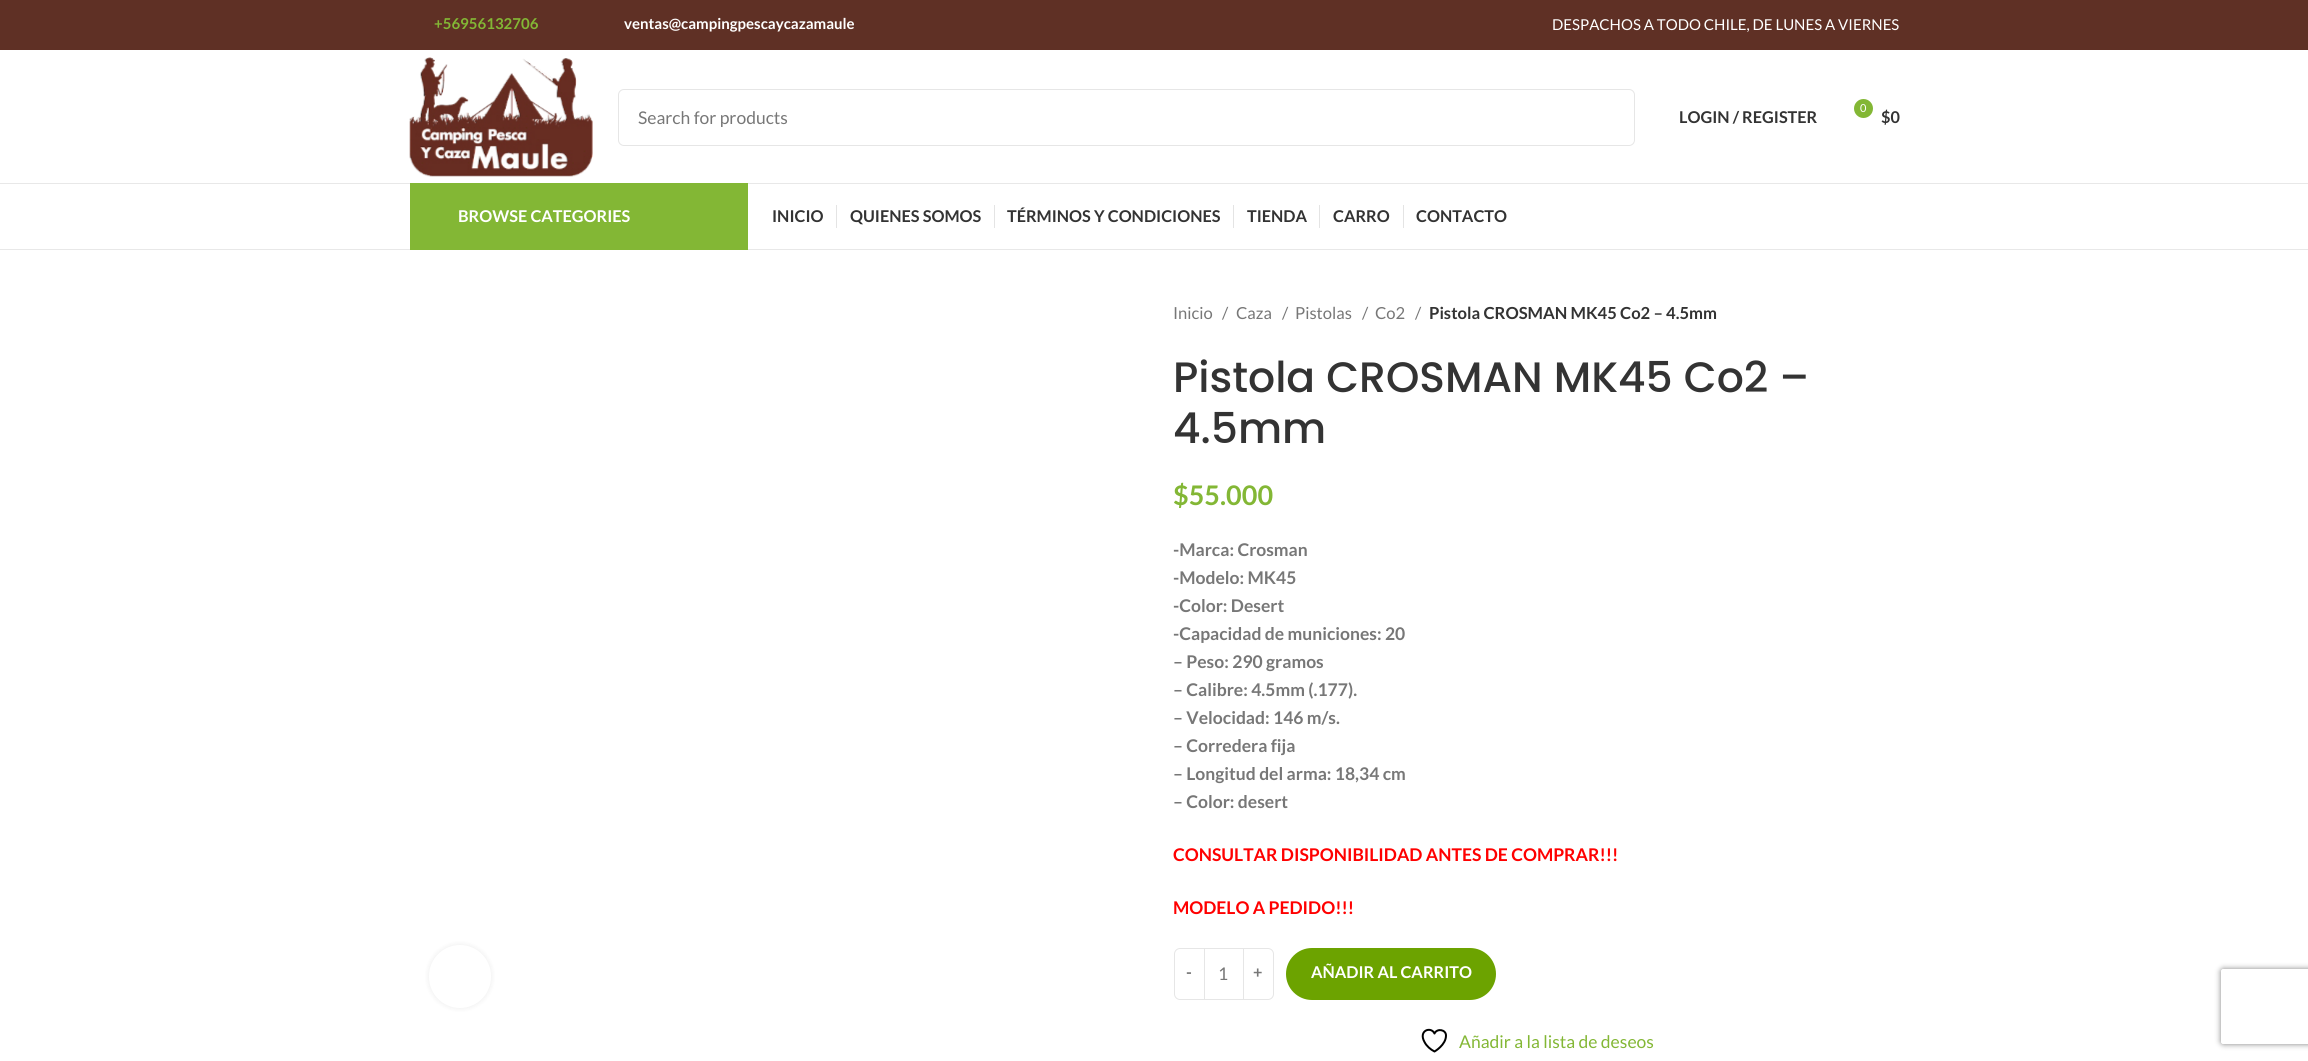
#include <cairo/cairo.h>
#include <math.h>
#include <stddef.h>

typedef struct { double x, y; const char *s; } line_t;
typedef struct { double x, y, w, h; unsigned color; } box_t;
static cairo_t *cr;

static void rgb(unsigned color)
{
	cairo_set_source_rgb(cr, (color >> 16) / 255.0, (color >> 8 & 255) / 255.0, (color & 255) / 255.0);
}

static void rrect(double x, double y, double w, double h, double r)
{
	cairo_new_sub_path(cr);
	cairo_arc(cr, x + w - r, y + h - r, r, 0, M_PI / 2);
	cairo_arc(cr, x + r, y + h - r, r, M_PI / 2, M_PI);
	cairo_arc(cr, x + r, y + r, r, M_PI, 1.5 * M_PI);
	cairo_arc(cr, x + w - r, y + r, r, 1.5 * M_PI, 2 * M_PI);
	cairo_close_path(cr);
}

static void soft_shadow(double x, double y, double w, double h, double r, double blur, double alpha)
{
	cairo_push_group_with_content(cr, CAIRO_CONTENT_ALPHA);
	cairo_set_operator(cr, CAIRO_OPERATOR_SOURCE);
	for (int i = 15; i >= -15 && fmin(w, h) + blur * i / 3 > 0; i -= 2) {
		double e = blur * i / 6;
		cairo_set_source_rgba(cr, 0, 0, 0, alpha * erfc((i - 1) / 8.5) / 2);
		rrect(x - e, y - e, w + 2 * e, h + 2 * e, fmax(0, fmin(r + e + blur * .6, fmin(w, h) / 2 + e)));
		cairo_fill(cr);
	}
	cairo_pattern_t *soft = cairo_pop_group(cr);
	cairo_mask(cr, soft);
	cairo_pattern_destroy(soft);
}

static void image(const char *path, double x, double y, double w, double h)
{
	cairo_surface_t *image = cairo_image_surface_create_from_png(path);
	cairo_save(cr);
	cairo_set_source_surface(cr, image, x, y);
	cairo_rectangle(cr, x, y, w, h);
	cairo_fill(cr);
	cairo_restore(cr);
	cairo_surface_destroy(image);
}

int main(void) {
	cairo_surface_t *surface = cairo_image_surface_create(CAIRO_FORMAT_RGB24, 2308, 1061);
	cr = cairo_create(surface);
	cairo_font_options_t *options = cairo_font_options_create();
	cairo_font_options_set_hint_metrics(options, CAIRO_HINT_METRICS_OFF);
	cairo_font_options_set_hint_style(options, CAIRO_HINT_STYLE_NONE);
	cairo_set_font_options(cr, options);
	cairo_set_miter_limit(cr, 4);
	rgb(0xffffff);
	cairo_paint(cr);
	rgb(0x5f3025);
	cairo_rectangle(cr, 0, 0, 2308, 50);
	cairo_fill(cr);
	rgb(0xe8e8e8);
	cairo_rectangle(cr, 0, 183, 2308, 1);
	cairo_fill(cr);
	image("img/1.png", 409, 57, 184, 120);
	rrect(618.5, 89.5, 1016, 56, 5.5);
	rgb(0xe6e6e6);
	cairo_set_line_width(cr, 1);
	cairo_stroke(cr);
	rgb(0x83b735);
	cairo_arc(cr, 1863.5, 108.5, 9.5, 0, 2 * M_PI);
	cairo_fill(cr);
	{
		static const box_t items[] = {
			{0, 249, 2308, 1, 0xe8e8e8},
			{410, 183, 338, 67, 0x83b735},
			{836, 205, 1, 23, 0xe4e4e4},
			{994, 205, 1, 23, 0xe4e4e4},
			{1233, 205, 1, 23, 0xe4e4e4},
			{1319, 205, 1, 23, 0xe4e4e4},
			{1403, 205, 1, 23, 0xe4e4e4},
		};
		for (size_t i = 0; i < sizeof items / sizeof *items; i++) {
			rgb(items[i].color);
			cairo_rectangle(cr, items[i].x, items[i].y, items[i].w, items[i].h);
			cairo_fill(cr);
		}
	}
	rgb(0x000000);
	soft_shadow(429, 945, 62, 63, 31, 3, 0.08);
	rgb(0xffffff);
	rrect(429, 945, 62, 63, 31);
	cairo_fill(cr);
	cairo_new_path(cr);
	cairo_move_to(cr, 1180, 948.5);
	cairo_line_to(cr, 1204.5, 948.5);
	cairo_line_to(cr, 1204.5, 999.5);
	cairo_line_to(cr, 1180, 999.5);
	cairo_curve_to(cr, 1177, 999.5, 1174.5, 997, 1174.5, 994);
	cairo_line_to(cr, 1174.5, 954);
	cairo_curve_to(cr, 1174.5, 951, 1177, 948.5, 1180, 948.5);
	cairo_close_path(cr);
	rgb(0xe6e6e6);
	cairo_stroke(cr);
	cairo_rectangle(cr, 1205, 948, 38, 1);
	cairo_fill(cr);
	cairo_rectangle(cr, 1205, 999, 38, 1);
	cairo_fill(cr);
	cairo_new_path(cr);
	cairo_move_to(cr, 1243.5, 948.5);
	cairo_line_to(cr, 1268, 948.5);
	cairo_curve_to(cr, 1271, 948.5, 1273.5, 951, 1273.5, 954);
	cairo_line_to(cr, 1273.5, 994);
	cairo_curve_to(cr, 1273.5, 997, 1271, 999.5, 1268, 999.5);
	cairo_line_to(cr, 1243.5, 999.5);
	cairo_close_path(cr);
	cairo_stroke(cr);
	rgb(0x6ca300);
	rrect(1286, 948, 210, 52, 26);
	cairo_fill(cr);
	cairo_new_path(cr);
	cairo_move_to(cr, 1446, 1035.5);
	cairo_curve_to(cr, 1446, 1029.5, 1437, 1028, 1434.5, 1033.5);
	cairo_curve_to(cr, 1431, 1026, 1418, 1030.5, 1424.5, 1042);
	cairo_curve_to(cr, 1426.5, 1046, 1430.5, 1049.5, 1434.5, 1051.5);
	cairo_curve_to(cr, 1434.5, 1051.5, 1446, 1045, 1446, 1035.5);
	cairo_close_path(cr);
	rgb(0x000000);
	cairo_set_line_width(cr, 2);
	cairo_set_line_cap(cr, CAIRO_LINE_CAP_ROUND);
	cairo_set_line_join(cr, CAIRO_LINE_JOIN_ROUND);
	cairo_stroke(cr);
	cairo_save(cr);
	cairo_set_fill_rule(cr, CAIRO_FILL_RULE_EVEN_ODD);
	cairo_new_path(cr);
	cairo_move_to(cr, 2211, 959);
	cairo_line_to(cr, 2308, 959);
	cairo_line_to(cr, 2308, 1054);
	cairo_line_to(cr, 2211, 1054);
	cairo_close_path(cr);
	cairo_move_to(cr, 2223.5, 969);
	cairo_line_to(cr, 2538.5, 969);
	cairo_curve_to(cr, 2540, 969, 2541, 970, 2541, 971.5);
	cairo_line_to(cr, 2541, 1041.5);
	cairo_curve_to(cr, 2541, 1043, 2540, 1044, 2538.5, 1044);
	cairo_line_to(cr, 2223.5, 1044);
	cairo_curve_to(cr, 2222, 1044, 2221, 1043, 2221, 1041.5);
	cairo_line_to(cr, 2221, 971.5);
	cairo_curve_to(cr, 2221, 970, 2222, 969, 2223.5, 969);
	cairo_close_path(cr);
	cairo_clip(cr);
	rgb(0x808080);
	soft_shadow(2221, 969, 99, 75, 2.5, 3, 1);
	cairo_restore(cr);
	cairo_select_font_face(cr, "Lato", CAIRO_FONT_SLANT_NORMAL, CAIRO_FONT_WEIGHT_BOLD);
	cairo_set_font_size(cr, 15);
	rgb(0x83b735);
	cairo_move_to(cr, 434, 29);
	cairo_show_text(cr, "+56956132706");
	rgb(0xffffff);
	cairo_move_to(cr, 624, 29);
	cairo_show_text(cr, "ventas@campingpescaycazamaule");
	cairo_select_font_face(cr, "Lato", CAIRO_FONT_SLANT_NORMAL, CAIRO_FONT_WEIGHT_NORMAL);
	cairo_move_to(cr, 1552, 30);
	cairo_show_text(cr, "DESPACHOS A TODO CHILE, DE LUNES A VIERNES");
	cairo_set_font_size(cr, 17.5);
	rgb(0x777777);
	cairo_move_to(cr, 638, 124);
	cairo_show_text(cr, "Search for products");
	cairo_select_font_face(cr, "Lato", CAIRO_FONT_SLANT_NORMAL, CAIRO_FONT_WEIGHT_BOLD);
	cairo_set_font_size(cr, 16.25);
	rgb(0x333333);
	cairo_move_to(cr, 1679, 123);
	cairo_show_text(cr, "LOGIN / REGISTER");
	cairo_select_font_face(cr, "Lato", CAIRO_FONT_SLANT_NORMAL, CAIRO_FONT_WEIGHT_NORMAL);
	cairo_set_font_size(cr, 11);
	rgb(0xffffff);
	cairo_move_to(cr, 1860, 112);
	cairo_show_text(cr, "0");
	cairo_select_font_face(cr, "Lato", CAIRO_FONT_SLANT_NORMAL, CAIRO_FONT_WEIGHT_BOLD);
	cairo_set_font_size(cr, 16.25);
	rgb(0x333333);
	cairo_move_to(cr, 1881, 123);
	cairo_show_text(cr, "$0");
	rgb(0xffffff);
	cairo_move_to(cr, 458, 222);
	cairo_show_text(cr, "BROWSE CATEGORIES");
	rgb(0x333333);
	{
		static const line_t items[] = {
			{772, 222, "INICIO"},
			{850, 222, "QUIENES SOMOS"},
			{1007, 222, "TÉRMINOS Y CONDICIONES"},
			{1247, 222, "TIENDA"},
			{1333, 222, "CARRO"},
			{1416, 222, "CONTACTO"},
		};
		for (size_t i = 0; i < sizeof items / sizeof *items; i++) {
			cairo_move_to(cr, items[i].x, items[i].y);
			cairo_show_text(cr, items[i].s);
		}
	}
	cairo_select_font_face(cr, "Lato", CAIRO_FONT_SLANT_NORMAL, CAIRO_FONT_WEIGHT_NORMAL);
	cairo_set_font_size(cr, 16.6);
	rgb(0x777777);
	{
		static const line_t items[] = {
			{1173, 319, "Inicio"},
			{1222, 319, "/"},
			{1236, 319, "Caza"},
			{1282, 319, "/"},
			{1295, 319, "Pistolas"},
			{1362, 319, "/"},
			{1375, 319, "Co2"},
			{1415, 319, "/"},
		};
		for (size_t i = 0; i < sizeof items / sizeof *items; i++) {
			cairo_move_to(cr, items[i].x, items[i].y);
			cairo_show_text(cr, items[i].s);
		}
	}
	cairo_select_font_face(cr, "Lato", CAIRO_FONT_SLANT_NORMAL, CAIRO_FONT_WEIGHT_BOLD);
	rgb(0x333333);
	cairo_move_to(cr, 1429, 319);
	cairo_show_text(cr, "Pistola CROSMAN MK45 Co2 – 4.5mm");
	cairo_select_font_face(cr, "Poppins Medium", CAIRO_FONT_SLANT_NORMAL, CAIRO_FONT_WEIGHT_NORMAL);
	cairo_set_font_size(cr, 42.5);
	cairo_move_to(cr, 1173, 392);
	cairo_show_text(cr, "Pistola CROSMAN MK45 Co2 –");
	cairo_move_to(cr, 1173, 443);
	cairo_show_text(cr, "4.5mm");
	cairo_select_font_face(cr, "Lato", CAIRO_FONT_SLANT_NORMAL, CAIRO_FONT_WEIGHT_BOLD);
	cairo_set_font_size(cr, 27);
	rgb(0x83b735);
	cairo_move_to(cr, 1173, 505);
	cairo_show_text(cr, "$55.000");
	cairo_set_font_size(cr, 17.5);
	rgb(0x777777);
	{
		static const line_t items[] = {
			{1173, 556, "-Marca: Crosman"},
			{1173, 584, "-Modelo: MK45"},
			{1173, 612, "-Color: Desert"},
			{1173, 640, "-Capacidad de municiones: 20"},
			{1173, 668, "– Peso: 290 gramos"},
			{1173, 696, "– Calibre: 4.5mm (.177)."},
			{1173, 724, "– Velocidad: 146 m/s."},
			{1173, 752, "– Corredera fija"},
			{1173, 780, "– Longitud del arma: 18,34 cm"},
			{1173, 808, "– Color: desert"},
		};
		for (size_t i = 0; i < sizeof items / sizeof *items; i++) {
			cairo_move_to(cr, items[i].x, items[i].y);
			cairo_show_text(cr, items[i].s);
		}
	}
	rgb(0xff0000);
	cairo_move_to(cr, 1173, 861);
	cairo_show_text(cr, "CONSULTAR DISPONIBILIDAD ANTES DE COMPRAR!!!");
	cairo_move_to(cr, 1173, 914);
	cairo_show_text(cr, "MODELO A PEDIDO!!!");
	cairo_set_font_size(cr, 16.25);
	rgb(0x777777);
	cairo_move_to(cr, 1186, 978);
	cairo_show_text(cr, "-");
	cairo_select_font_face(cr, "Lato", CAIRO_FONT_SLANT_NORMAL, CAIRO_FONT_WEIGHT_NORMAL);
	cairo_set_font_size(cr, 17.5);
	cairo_move_to(cr, 1218, 980);
	cairo_show_text(cr, "1");
	cairo_select_font_face(cr, "Lato", CAIRO_FONT_SLANT_NORMAL, CAIRO_FONT_WEIGHT_BOLD);
	cairo_set_font_size(cr, 16.25);
	cairo_move_to(cr, 1253, 978);
	cairo_show_text(cr, "+");
	rgb(0xffffff);
	cairo_move_to(cr, 1311, 978);
	cairo_show_text(cr, "AÑADIR AL CARRITO");
	cairo_select_font_face(cr, "Lato", CAIRO_FONT_SLANT_NORMAL, CAIRO_FONT_WEIGHT_NORMAL);
	cairo_set_font_size(cr, 17.5);
	rgb(0x83b735);
	cairo_move_to(cr, 1459, 1048);
	cairo_show_text(cr, "Añadir a la lista de deseos");
	cairo_surface_write_to_png(surface, "page.png");
	cairo_font_options_destroy(options);
	cairo_destroy(cr);
	cairo_surface_destroy(surface);
	return 0;
}
